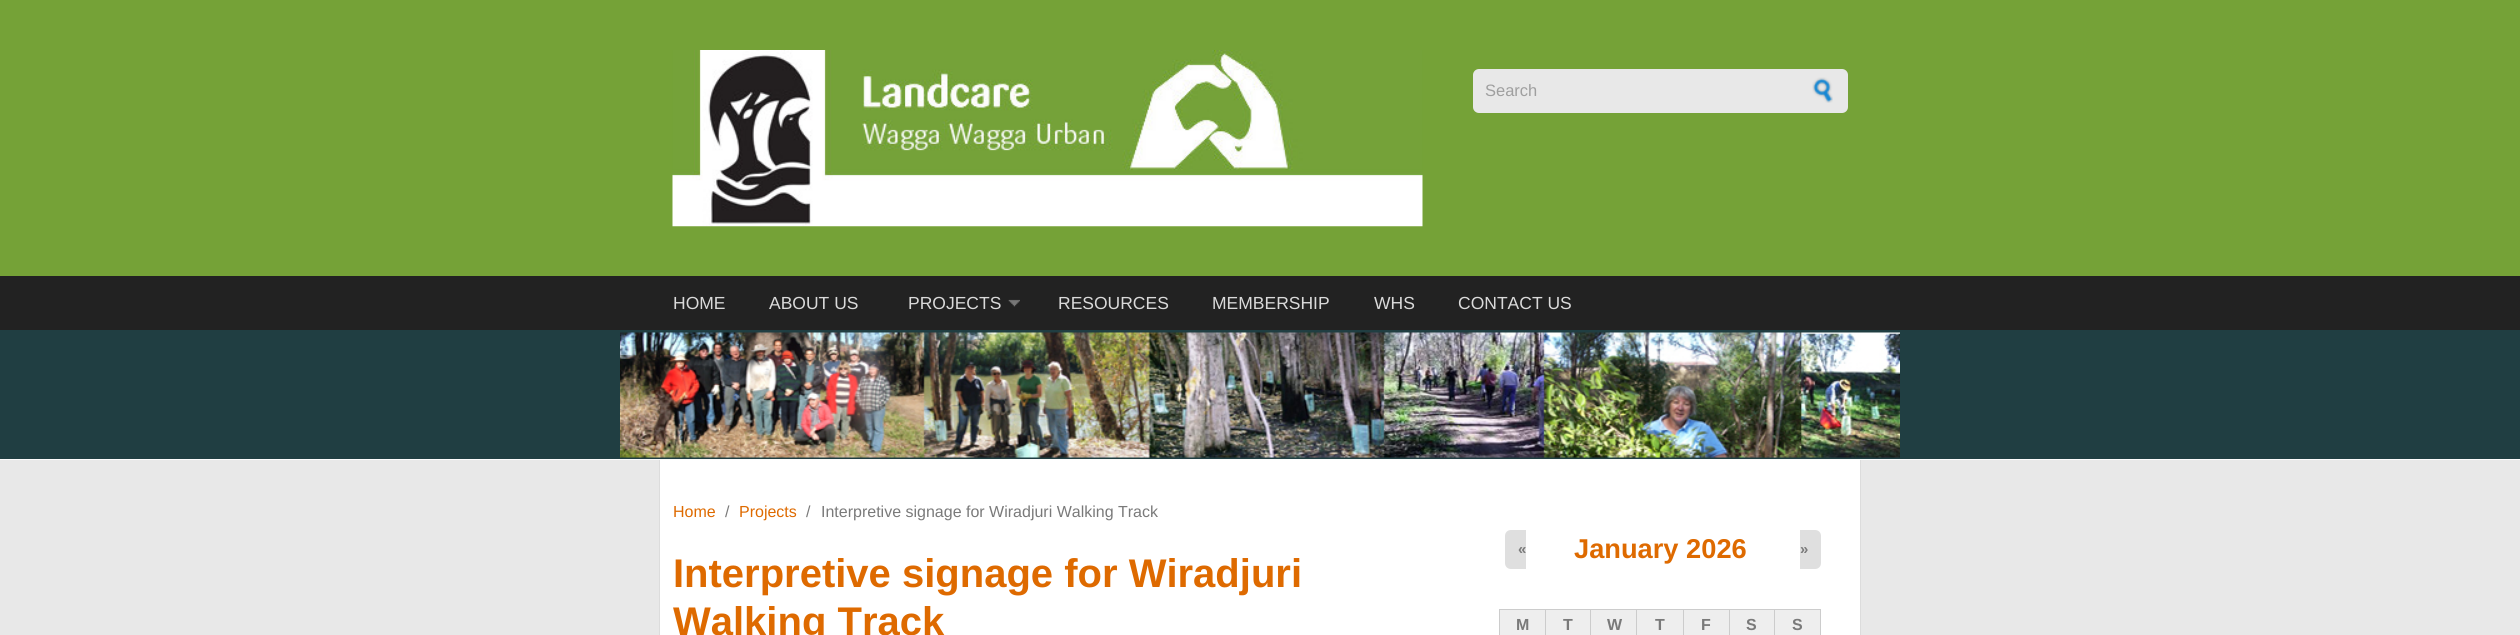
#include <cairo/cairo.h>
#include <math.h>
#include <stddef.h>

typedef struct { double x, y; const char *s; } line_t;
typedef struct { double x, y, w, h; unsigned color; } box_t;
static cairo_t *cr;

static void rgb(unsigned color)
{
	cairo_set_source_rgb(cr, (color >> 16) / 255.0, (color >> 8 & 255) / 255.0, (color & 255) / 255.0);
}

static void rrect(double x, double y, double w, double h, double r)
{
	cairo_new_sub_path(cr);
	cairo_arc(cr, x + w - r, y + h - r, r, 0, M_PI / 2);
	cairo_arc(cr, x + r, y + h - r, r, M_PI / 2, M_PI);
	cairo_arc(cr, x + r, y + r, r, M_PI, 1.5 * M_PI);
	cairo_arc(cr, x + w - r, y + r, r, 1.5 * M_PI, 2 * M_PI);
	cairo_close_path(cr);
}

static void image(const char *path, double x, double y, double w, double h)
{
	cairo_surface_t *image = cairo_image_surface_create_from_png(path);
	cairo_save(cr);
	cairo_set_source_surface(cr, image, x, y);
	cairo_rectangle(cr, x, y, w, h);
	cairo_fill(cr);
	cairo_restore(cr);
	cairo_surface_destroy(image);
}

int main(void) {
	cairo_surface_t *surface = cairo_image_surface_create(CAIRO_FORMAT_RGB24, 2520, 635);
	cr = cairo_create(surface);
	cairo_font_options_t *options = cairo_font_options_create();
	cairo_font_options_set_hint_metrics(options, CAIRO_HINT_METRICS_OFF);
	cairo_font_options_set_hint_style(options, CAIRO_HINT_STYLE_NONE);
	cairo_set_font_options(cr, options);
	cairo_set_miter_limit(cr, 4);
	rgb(0x222222);
	cairo_paint(cr);
	rgb(0x75a237);
	cairo_rectangle(cr, 0, 0, 2520, 276);
	cairo_fill(cr);
	image("img/1.png", 672, 50, 751, 177);
	rgb(0xe8e8e8);
	rrect(1473, 69, 375, 44, 6);
	cairo_fill(cr);
	image("img/2.png", 1812, 77, 21, 26);
	image("img/3.png", 1008, 299, 12, 8);
	rgb(0x203e42);
	cairo_rectangle(cr, 0, 330, 2520, 129);
	cairo_fill(cr);
	rgb(0xfcfcfc);
	cairo_rectangle(cr, 0, 459, 2520, 1);
	cairo_fill(cr);
	image("img/4.png", 620, 332, 1280, 126);
	{
		static const box_t items[] = {
			{0, 460, 2520, 175, 0xe8e8e8},
			{660, 460, 1200, 175, 0xffffff},
			{1860, 460, 1, 175, 0xdcdcdc},
			{659, 460, 1, 175, 0xdcdcdc},
		};
		for (size_t i = 0; i < sizeof items / sizeof *items; i++) {
			rgb(items[i].color);
			cairo_rectangle(cr, items[i].x, items[i].y, items[i].w, items[i].h);
			cairo_fill(cr);
		}
	}
	rgb(0xdfdfdf);
	cairo_new_path(cr);
	cairo_move_to(cr, 1511, 530);
	cairo_line_to(cr, 1526, 530);
	cairo_line_to(cr, 1526, 569);
	cairo_line_to(cr, 1511, 569);
	cairo_curve_to(cr, 1507.5, 569, 1505, 566.5, 1505, 563);
	cairo_line_to(cr, 1505, 536);
	cairo_curve_to(cr, 1505, 532.5, 1507.5, 530, 1511, 530);
	cairo_close_path(cr);
	cairo_fill(cr);
	cairo_new_path(cr);
	cairo_move_to(cr, 1800, 530);
	cairo_line_to(cr, 1815, 530);
	cairo_curve_to(cr, 1818.5, 530, 1821, 532.5, 1821, 536);
	cairo_line_to(cr, 1821, 563);
	cairo_curve_to(cr, 1821, 566.5, 1818.5, 569, 1815, 569);
	cairo_line_to(cr, 1800, 569);
	cairo_close_path(cr);
	cairo_fill(cr);
	{
		static const box_t items[] = {
			{1500, 610, 45, 25, 0xeeeeee},
			{1774, 609, 47, 1, 0xcccccc},
			{1774, 609, 1, 26, 0xcccccc},
			{1729, 609, 46, 1, 0xcccccc},
			{1729, 609, 1, 26, 0xcccccc},
			{1683, 609, 47, 1, 0xcccccc},
			{1683, 609, 1, 26, 0xcccccc},
			{1636, 609, 48, 1, 0xcccccc},
			{1591, 610, 92, 25, 0xeeeeee},
			{1636, 609, 1, 26, 0xcccccc},
			{1590, 609, 48, 1, 0xcccccc},
			{1590, 609, 1, 26, 0xcccccc},
			{1545, 609, 46, 1, 0xcccccc},
			{1545, 609, 1, 26, 0xcccccc},
			{1499, 609, 47, 1, 0xcccccc},
			{1499, 609, 1, 26, 0xcccccc},
			{1546, 610, 44, 25, 0xeeeeee},
			{1684, 610, 45, 25, 0xeeeeee},
			{1730, 610, 44, 25, 0xeeeeee},
			{1775, 610, 45, 25, 0xeeeeee},
			{1820, 609, 1, 26, 0xcccccc},
		};
		for (size_t i = 0; i < sizeof items / sizeof *items; i++) {
			rgb(items[i].color);
			cairo_rectangle(cr, items[i].x, items[i].y, items[i].w, items[i].h);
			cairo_fill(cr);
		}
	}
	cairo_select_font_face(cr, "Liberation Sans", CAIRO_FONT_SLANT_NORMAL, CAIRO_FONT_WEIGHT_NORMAL);
	cairo_set_font_size(cr, 16.5);
	rgb(0x9f9f9f);
	cairo_move_to(cr, 1485, 96);
	cairo_show_text(cr, "Search");
	cairo_set_font_size(cr, 17.5);
	rgb(0xdadada);
	{
		static const line_t items[] = {
			{673, 309, "HOME"},
			{769, 309, "ABOUT US"},
			{908, 309, "PROJECTS"},
			{1058, 309, "RESOURCES"},
			{1212, 309, "MEMBERSHIP"},
			{1374, 309, "WHS"},
			{1458, 309, "CONTACT US"},
		};
		for (size_t i = 0; i < sizeof items / sizeof *items; i++) {
			cairo_move_to(cr, items[i].x, items[i].y);
			cairo_show_text(cr, items[i].s);
		}
	}
	cairo_set_font_size(cr, 16);
	rgb(0xde6a00);
	cairo_move_to(cr, 673, 517);
	cairo_show_text(cr, "Home");
	rgb(0x7a7a7a);
	cairo_move_to(cr, 725, 517);
	cairo_show_text(cr, "/");
	rgb(0xde6a00);
	cairo_move_to(cr, 739, 517);
	cairo_show_text(cr, "Projects");
	rgb(0x7a7a7a);
	cairo_move_to(cr, 806, 517);
	cairo_show_text(cr, "/");
	cairo_move_to(cr, 821, 517);
	cairo_show_text(cr, "Interpretive signage for Wiradjuri Walking Track");
	cairo_select_font_face(cr, "Liberation Sans", CAIRO_FONT_SLANT_NORMAL, CAIRO_FONT_WEIGHT_BOLD);
	cairo_set_font_size(cr, 40);
	rgb(0xde6a00);
	cairo_move_to(cr, 673, 587);
	cairo_show_text(cr, "Interpretive signage for Wiradjuri");
	cairo_move_to(cr, 673, 635);
	cairo_show_text(cr, "Walking Track");
	cairo_set_font_size(cr, 27.25);
	cairo_move_to(cr, 1574, 558);
	cairo_show_text(cr, "January 2026");
	cairo_set_font_size(cr, 15);
	rgb(0x7a7a7a);
	cairo_move_to(cr, 1518, 554);
	cairo_show_text(cr, "«");
	cairo_move_to(cr, 1800, 554);
	cairo_show_text(cr, "»");
	cairo_set_font_size(cr, 16);
	{
		static const line_t items[] = {
			{1516, 630, "M"},
			{1563, 630, "T"},
			{1607, 630, "W"},
			{1655, 630, "T"},
			{1701, 630, "F"},
			{1746, 630, "S"},
			{1792, 630, "S"},
		};
		for (size_t i = 0; i < sizeof items / sizeof *items; i++) {
			cairo_move_to(cr, items[i].x, items[i].y);
			cairo_show_text(cr, items[i].s);
		}
	}
	cairo_surface_write_to_png(surface, "page.png");
	cairo_font_options_destroy(options);
	cairo_destroy(cr);
	cairo_surface_destroy(surface);
	return 0;
}
